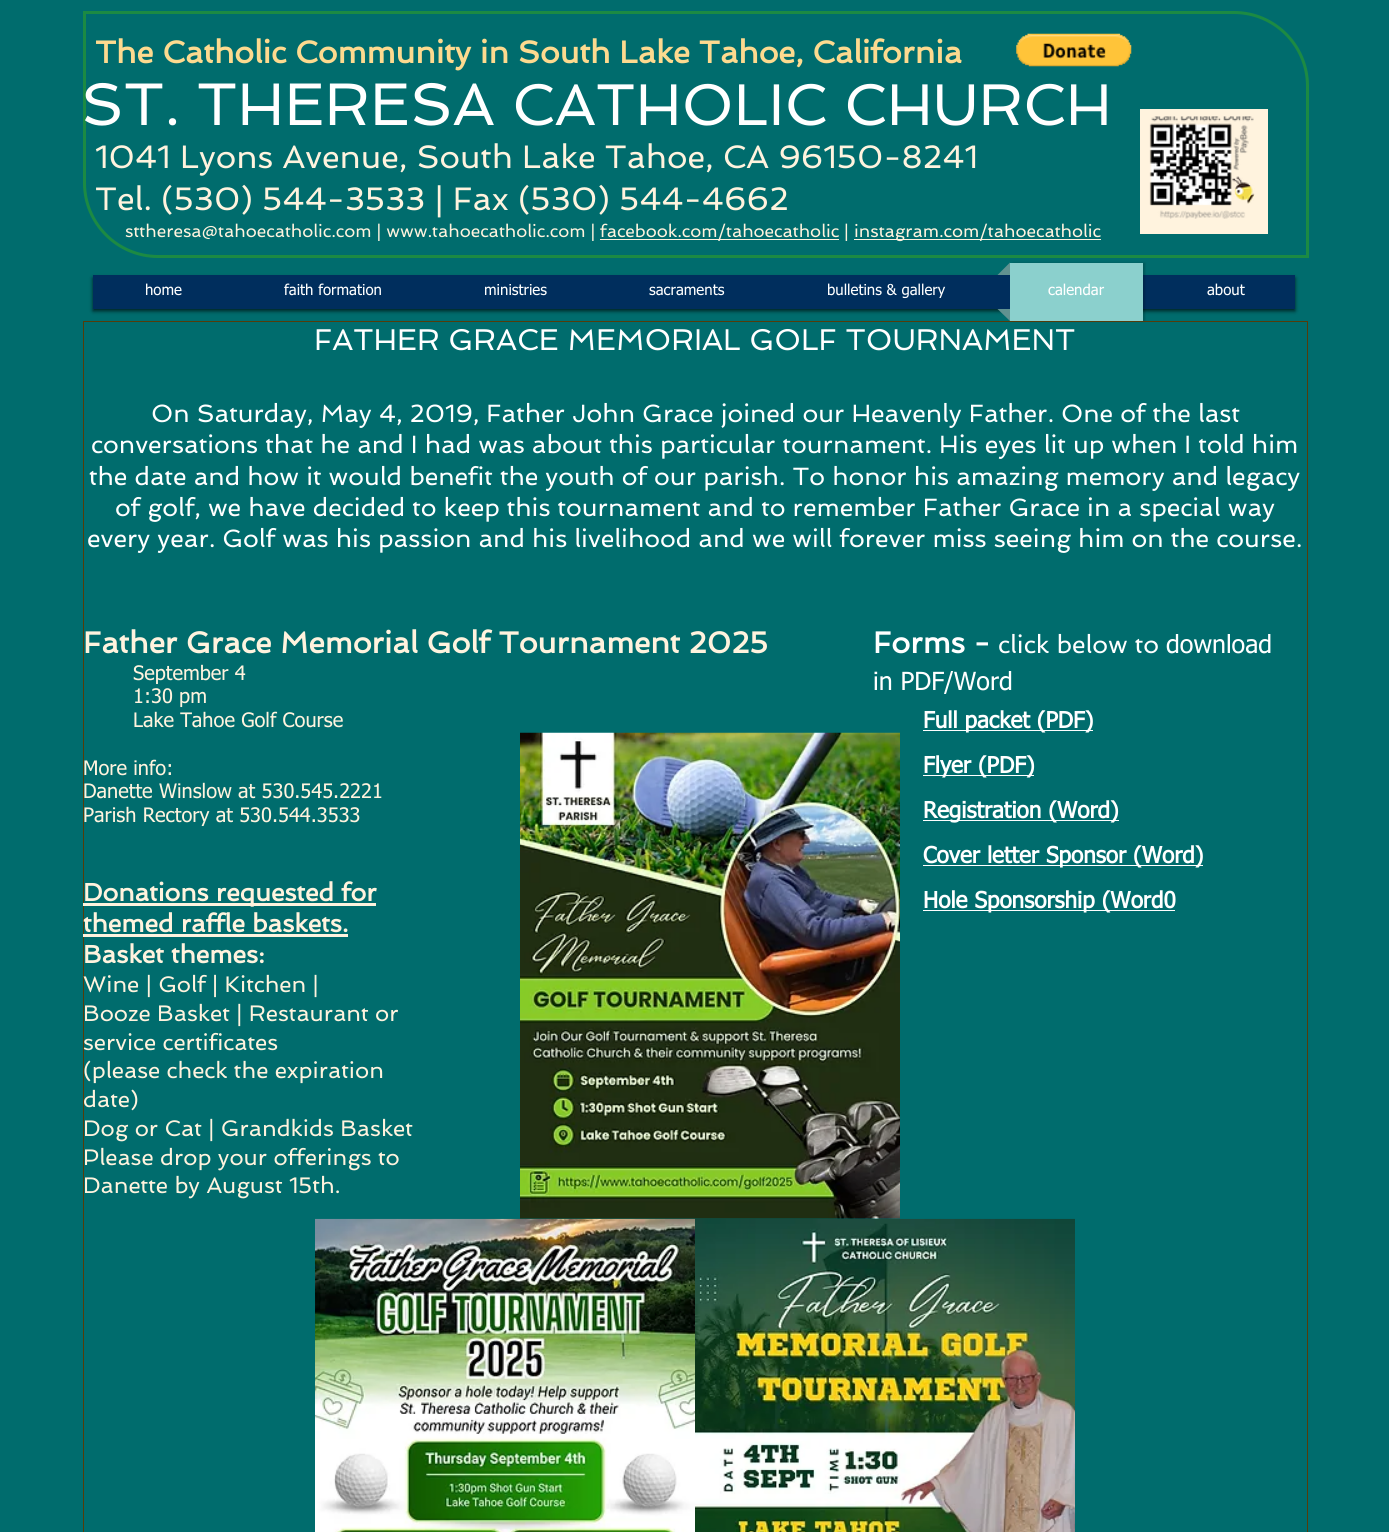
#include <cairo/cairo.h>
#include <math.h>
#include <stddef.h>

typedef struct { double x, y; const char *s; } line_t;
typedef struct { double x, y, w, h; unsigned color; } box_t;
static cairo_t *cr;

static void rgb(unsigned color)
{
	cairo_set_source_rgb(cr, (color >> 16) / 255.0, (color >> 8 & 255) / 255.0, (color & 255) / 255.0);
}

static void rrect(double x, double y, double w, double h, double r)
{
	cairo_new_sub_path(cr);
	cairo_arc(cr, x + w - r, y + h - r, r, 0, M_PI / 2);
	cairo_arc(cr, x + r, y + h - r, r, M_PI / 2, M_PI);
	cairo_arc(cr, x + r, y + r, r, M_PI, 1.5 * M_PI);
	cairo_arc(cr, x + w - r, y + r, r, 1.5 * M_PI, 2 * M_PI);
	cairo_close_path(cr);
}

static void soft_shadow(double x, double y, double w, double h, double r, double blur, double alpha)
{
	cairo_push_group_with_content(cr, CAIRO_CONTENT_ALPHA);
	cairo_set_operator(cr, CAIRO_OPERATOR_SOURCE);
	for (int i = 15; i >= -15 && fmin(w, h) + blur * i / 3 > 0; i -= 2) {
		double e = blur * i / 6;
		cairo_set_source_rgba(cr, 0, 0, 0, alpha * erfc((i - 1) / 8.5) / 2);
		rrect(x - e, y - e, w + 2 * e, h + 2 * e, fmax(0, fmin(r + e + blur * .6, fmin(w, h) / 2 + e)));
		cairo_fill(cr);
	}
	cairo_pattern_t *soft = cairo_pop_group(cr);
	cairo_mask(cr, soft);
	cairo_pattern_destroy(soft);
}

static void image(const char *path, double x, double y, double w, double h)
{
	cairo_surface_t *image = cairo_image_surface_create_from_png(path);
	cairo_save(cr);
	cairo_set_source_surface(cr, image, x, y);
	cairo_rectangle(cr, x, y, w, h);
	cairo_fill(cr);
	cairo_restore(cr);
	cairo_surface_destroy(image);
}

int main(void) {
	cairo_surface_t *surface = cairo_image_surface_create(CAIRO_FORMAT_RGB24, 1389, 1532);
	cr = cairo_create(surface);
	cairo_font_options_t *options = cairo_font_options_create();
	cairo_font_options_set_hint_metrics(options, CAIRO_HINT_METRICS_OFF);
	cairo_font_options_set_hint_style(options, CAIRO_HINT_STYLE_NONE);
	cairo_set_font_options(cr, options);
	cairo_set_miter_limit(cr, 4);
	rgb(0x006c6d);
	cairo_paint(cr);
	cairo_new_path(cr);
	cairo_move_to(cr, 84.5, 12.5);
	cairo_line_to(cr, 1234, 12.5);
	cairo_curve_to(cr, 1274.5, 12.5, 1307.5, 45.5, 1307.5, 86);
	cairo_line_to(cr, 1307.5, 256.5);
	cairo_line_to(cr, 158, 256.5);
	cairo_curve_to(cr, 117.5, 256.5, 84.5, 223.5, 84.5, 183);
	cairo_close_path(cr);
	rgb(0x1c8a43);
	cairo_set_line_width(cr, 3);
	cairo_stroke(cr);
	image("img/1.png", 1016, 33, 116, 34);
	rgb(0xfff3de);
	cairo_rectangle(cr, 1140, 109, 128, 125);
	cairo_fill(cr);
	image("img/2.png", 1149, 116, 106, 103);
	cairo_rectangle(cr, 600, 239, 239, 1);
	cairo_fill(cr);
	cairo_rectangle(cr, 854, 239, 247, 1);
	cairo_fill(cr);
	rgb(0x000000);
	soft_shadow(93, 278, 1202, 33, 0, 2, 0.7);
	rgb(0x002e5d);
	cairo_rectangle(cr, 93, 275, 1202, 34);
	cairo_fill(cr);
	rgb(0x000000);
	soft_shadow(1013, 263, 132, 58, 0, 1, 0.2);
	rgb(0x619290);
	cairo_new_path(cr);
	cairo_move_to(cr, 1010, 275);
	cairo_line_to(cr, 997.5, 275);
	cairo_line_to(cr, 1010, 262.5);
	cairo_close_path(cr);
	cairo_move_to(cr, 997.5, 309);
	cairo_line_to(cr, 1010, 309);
	cairo_line_to(cr, 1010, 321);
	cairo_close_path(cr);
	cairo_fill(cr);
	rgb(0x8bd0cd);
	cairo_rectangle(cr, 1010, 263, 133, 58);
	cairo_fill(cr);
	cairo_rectangle(cr, 83.5, 321.5, 1224, 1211);
	rgb(0x543c0a);
	cairo_set_line_width(cr, 1);
	cairo_stroke(cr);
	{
		static const box_t items[] = {
			{83, 903, 293, 3, 0xfff3de},
			{83, 934, 265, 3, 0xfff3de},
			{923, 730, 170, 1, 0xffffff},
			{923, 775, 27, 1, 0xffffff},
			{950, 775, 84, 1, 0xffffff},
			{923, 820, 196, 1, 0xffffff},
			{923, 865, 280, 1, 0xffffff},
			{923, 910, 252, 1, 0xffffff},
		};
		for (size_t i = 0; i < sizeof items / sizeof *items; i++) {
			rgb(items[i].color);
			cairo_rectangle(cr, items[i].x, items[i].y, items[i].w, items[i].h);
			cairo_fill(cr);
		}
	}
	image("img/3.png", 520, 732, 380, 487);
	image("img/4.png", 315, 1218, 380, 314);
	image("img/5.png", 695, 1218, 380, 314);
	cairo_select_font_face(cr, "Spinnaker", CAIRO_FONT_SLANT_NORMAL, CAIRO_FONT_WEIGHT_BOLD);
	cairo_set_font_size(cr, 31.25);
	rgb(0xfdda8f);
	cairo_move_to(cr, 95, 63);
	cairo_show_text(cr, "The Catholic Community in South Lake Tahoe, California");
	cairo_select_font_face(cr, "Spinnaker", CAIRO_FONT_SLANT_NORMAL, CAIRO_FONT_WEIGHT_NORMAL);
	cairo_set_font_size(cr, 60);
	rgb(0xffffff);
	cairo_move_to(cr, 81, 125);
	cairo_show_text(cr, "ST. THERESA");
	cairo_set_font_size(cr, 58.75);
	cairo_move_to(cr, 512, 125);
	cairo_show_text(cr, "CATHOLIC CHURCH");
	cairo_set_font_size(cr, 32.5);
	rgb(0xfff3de);
	cairo_move_to(cr, 95, 168);
	cairo_show_text(cr, "1041 Lyons Avenue, South Lake Tahoe, CA 96150-8241");
	cairo_move_to(cr, 95, 210);
	cairo_show_text(cr, "Tel. (530) 544-3533 | Fax (530) 544-4662");
	cairo_set_font_size(cr, 17.5);
	{
		static const line_t items[] = {
			{125, 237, "sttheresa@tahoecatholic.com | www.tahoecatholic.com |"},
			{600, 237, "facebook.com/tahoecatholic |"},
			{854, 237, "instagram.com/tahoecatholic"},
		};
		for (size_t i = 0; i < sizeof items / sizeof *items; i++) {
			cairo_move_to(cr, items[i].x, items[i].y);
			cairo_show_text(cr, items[i].s);
		}
	}
	cairo_select_font_face(cr, "tahoma", CAIRO_FONT_SLANT_NORMAL, CAIRO_FONT_WEIGHT_NORMAL);
	cairo_set_font_size(cr, 15);
	rgb(0xffffff);
	{
		static const line_t items[] = {
			{145, 295, "home"},
			{284, 295, "faith formation"},
			{484, 295, "ministries"},
			{649, 295, "sacraments"},
			{827, 295, "bulletins & gallery"},
			{1048, 295, "calendar"},
			{1207, 295, "about"},
		};
		for (size_t i = 0; i < sizeof items / sizeof *items; i++) {
			cairo_move_to(cr, items[i].x, items[i].y);
			cairo_show_text(cr, items[i].s);
		}
	}
	cairo_select_font_face(cr, "Spinnaker", CAIRO_FONT_SLANT_NORMAL, CAIRO_FONT_WEIGHT_NORMAL);
	cairo_set_font_size(cr, 30);
	cairo_move_to(cr, 314, 350);
	cairo_show_text(cr, "FATHER GRACE MEMORIAL GOLF TOURNAMENT");
	cairo_set_font_size(cr, 25);
	{
		static const line_t items[] = {
			{151, 422, "On Saturday, May 4, 2019, Father John Grace joined our Heavenly Father. One of the last"},
			{91, 453, "conversations that he and I had was about this particular tournament. His eyes lit up when I told him"},
			{89, 485, "the date and how it would benefit the youth of our parish. To honor his amazing memory and legacy"},
			{115, 516, "of golf, we have decided to keep this tournament and to remember Father Grace in a special way"},
			{87, 547, "every year. Golf was his passion and his livelihood and we will forever miss seeing him on the course."},
		};
		for (size_t i = 0; i < sizeof items / sizeof *items; i++) {
			cairo_move_to(cr, items[i].x, items[i].y);
			cairo_show_text(cr, items[i].s);
		}
	}
	cairo_select_font_face(cr, "Spinnaker", CAIRO_FONT_SLANT_NORMAL, CAIRO_FONT_WEIGHT_BOLD);
	cairo_set_font_size(cr, 30);
	rgb(0xfff3de);
	cairo_move_to(cr, 83, 653);
	cairo_show_text(cr, "Father Grace Memorial Golf Tournament 2025");
	cairo_select_font_face(cr, "tahoma", CAIRO_FONT_SLANT_NORMAL, CAIRO_FONT_WEIGHT_NORMAL);
	cairo_set_font_size(cr, 20);
	{
		static const line_t items[] = {
			{133, 680, "September 4"},
			{133, 703, "1:30 pm"},
			{133, 727, "Lake Tahoe Golf Course"},
			{83, 775, "More info:"},
			{83, 798, "Danette Winslow at 530.545.2221"},
			{83, 822, "Parish Rectory at 530.544.3533"},
		};
		for (size_t i = 0; i < sizeof items / sizeof *items; i++) {
			cairo_move_to(cr, items[i].x, items[i].y);
			cairo_show_text(cr, items[i].s);
		}
	}
	cairo_select_font_face(cr, "Spinnaker", CAIRO_FONT_SLANT_NORMAL, CAIRO_FONT_WEIGHT_BOLD);
	cairo_set_font_size(cr, 25);
	{
		static const line_t items[] = {
			{83, 901, "Donations requested for"},
			{83, 932, "themed raffle baskets."},
			{83, 963, "Basket themes:"},
		};
		for (size_t i = 0; i < sizeof items / sizeof *items; i++) {
			cairo_move_to(cr, items[i].x, items[i].y);
			cairo_show_text(cr, items[i].s);
		}
	}
	cairo_select_font_face(cr, "Spinnaker", CAIRO_FONT_SLANT_NORMAL, CAIRO_FONT_WEIGHT_NORMAL);
	cairo_set_font_size(cr, 22.5);
	{
		static const line_t items[] = {
			{83, 992, "Wine | Golf | Kitchen |"},
			{83, 1021, "Booze Basket | Restaurant or"},
			{83, 1050, "service certificates"},
			{83, 1078, "(please check the expiration"},
			{83, 1107, "date)"},
			{83, 1136, "Dog or Cat | Grandkids Basket"},
			{83, 1165, "Please drop your offerings to"},
			{83, 1193, "Danette by August 15th."},
		};
		for (size_t i = 0; i < sizeof items / sizeof *items; i++) {
			cairo_move_to(cr, items[i].x, items[i].y);
			cairo_show_text(cr, items[i].s);
		}
	}
	cairo_select_font_face(cr, "Spinnaker", CAIRO_FONT_SLANT_NORMAL, CAIRO_FONT_WEIGHT_BOLD);
	cairo_set_font_size(cr, 30);
	rgb(0xffffff);
	cairo_move_to(cr, 873, 653);
	cairo_show_text(cr, "Forms -");
	cairo_select_font_face(cr, "Spinnaker", CAIRO_FONT_SLANT_NORMAL, CAIRO_FONT_WEIGHT_NORMAL);
	cairo_set_font_size(cr, 25);
	cairo_move_to(cr, 998, 653);
	cairo_show_text(cr, "click below to");
	cairo_select_font_face(cr, "tahoma", CAIRO_FONT_SLANT_NORMAL, CAIRO_FONT_WEIGHT_NORMAL);
	cairo_move_to(cr, 1166, 653);
	cairo_show_text(cr, "download");
	cairo_move_to(cr, 873, 690);
	cairo_show_text(cr, "in PDF/Word");
	cairo_select_font_face(cr, "tahoma", CAIRO_FONT_SLANT_NORMAL, CAIRO_FONT_WEIGHT_BOLD);
	cairo_set_font_size(cr, 22.5);
	{
		static const line_t items[] = {
			{923, 728, "Full packet (PDF)"},
			{923, 773, "Fly"},
			{951, 773, "er (PDF)"},
			{923, 818, "Registration (Word)"},
			{923, 863, "Cover letter Sponsor (Word)"},
			{923, 908, "Hole Sponsorship (Word0"},
		};
		for (size_t i = 0; i < sizeof items / sizeof *items; i++) {
			cairo_move_to(cr, items[i].x, items[i].y);
			cairo_show_text(cr, items[i].s);
		}
	}
	cairo_surface_write_to_png(surface, "page.png");
	cairo_font_options_destroy(options);
	cairo_destroy(cr);
	cairo_surface_destroy(surface);
	return 0;
}
